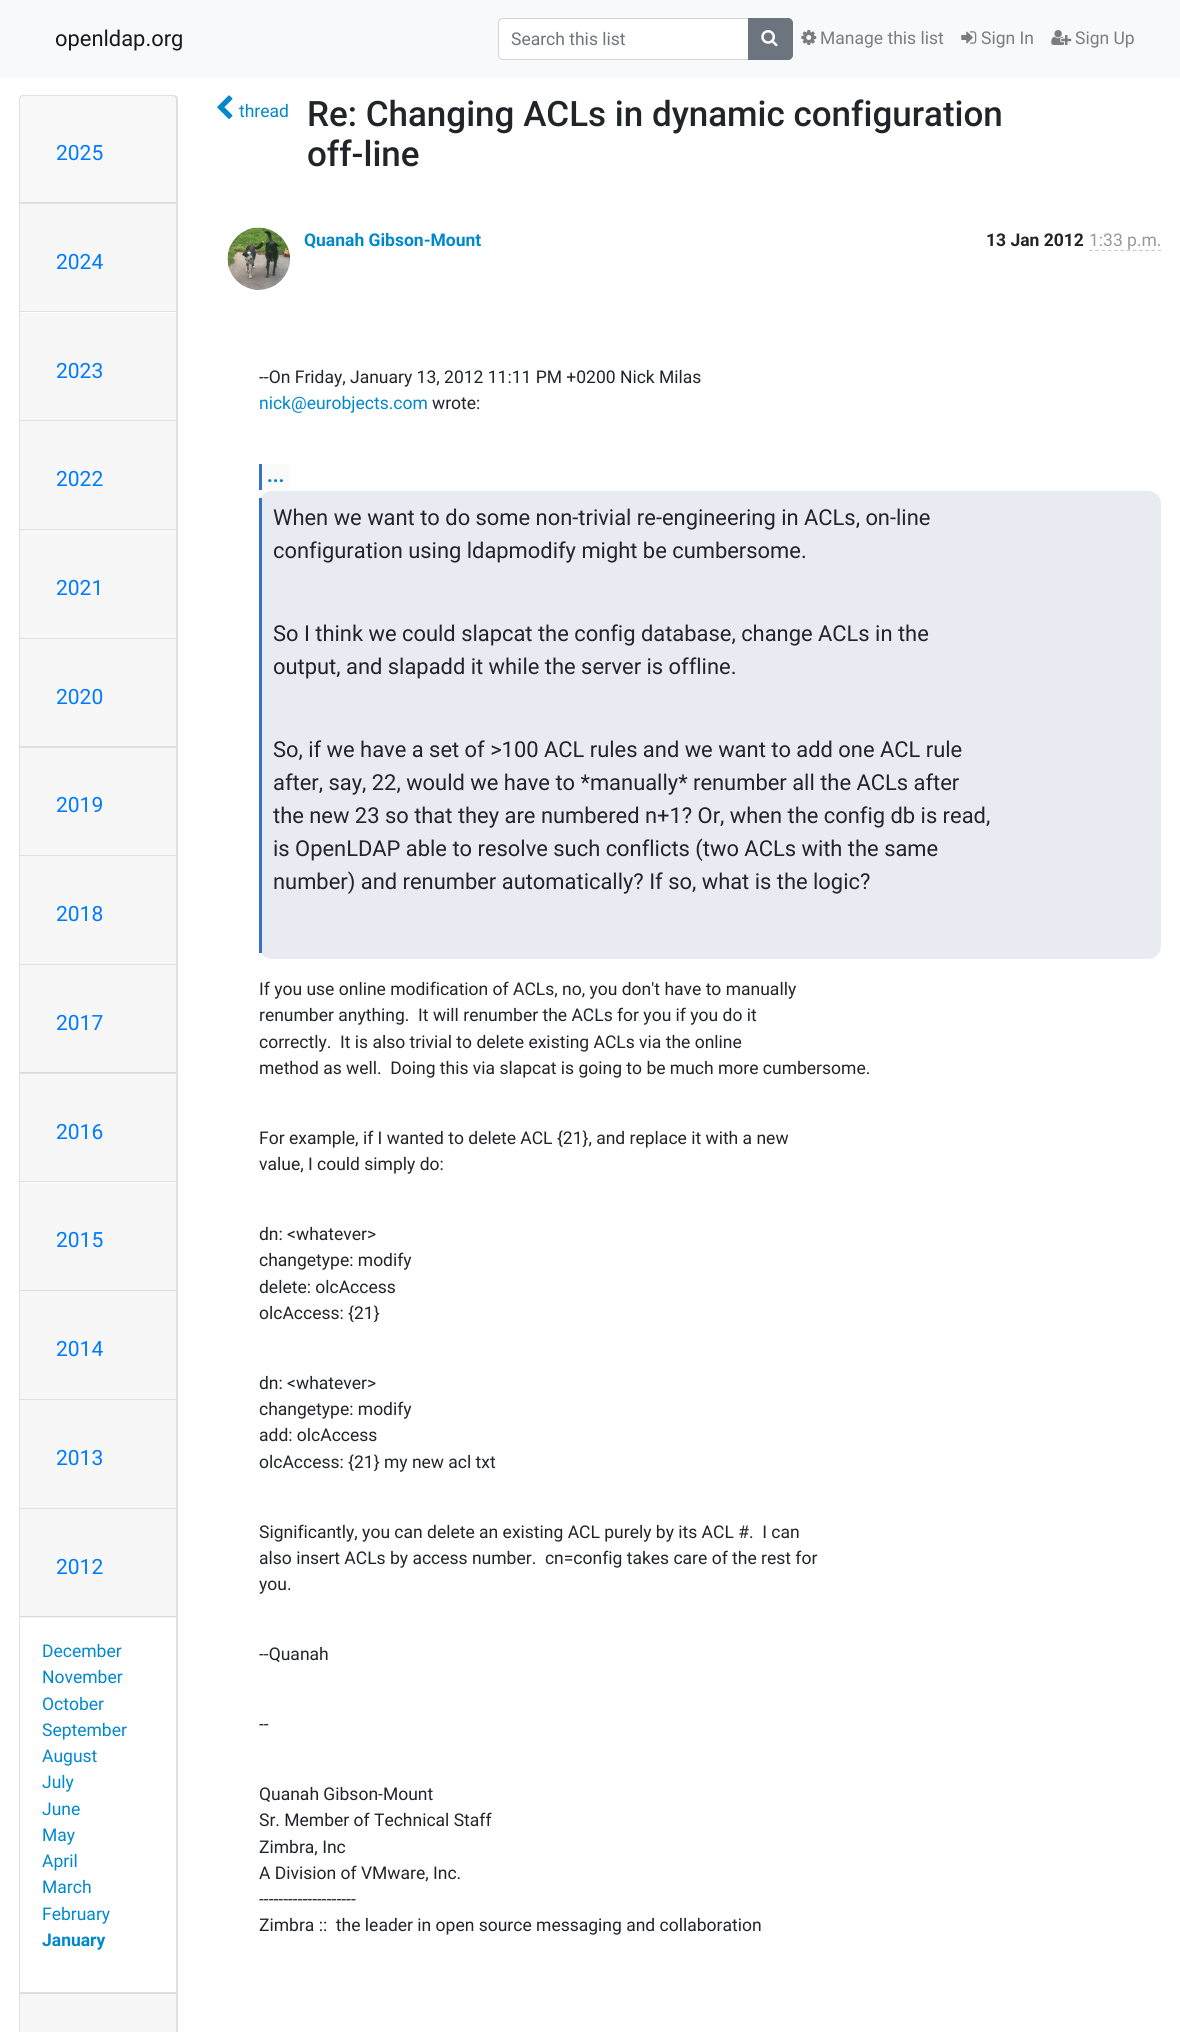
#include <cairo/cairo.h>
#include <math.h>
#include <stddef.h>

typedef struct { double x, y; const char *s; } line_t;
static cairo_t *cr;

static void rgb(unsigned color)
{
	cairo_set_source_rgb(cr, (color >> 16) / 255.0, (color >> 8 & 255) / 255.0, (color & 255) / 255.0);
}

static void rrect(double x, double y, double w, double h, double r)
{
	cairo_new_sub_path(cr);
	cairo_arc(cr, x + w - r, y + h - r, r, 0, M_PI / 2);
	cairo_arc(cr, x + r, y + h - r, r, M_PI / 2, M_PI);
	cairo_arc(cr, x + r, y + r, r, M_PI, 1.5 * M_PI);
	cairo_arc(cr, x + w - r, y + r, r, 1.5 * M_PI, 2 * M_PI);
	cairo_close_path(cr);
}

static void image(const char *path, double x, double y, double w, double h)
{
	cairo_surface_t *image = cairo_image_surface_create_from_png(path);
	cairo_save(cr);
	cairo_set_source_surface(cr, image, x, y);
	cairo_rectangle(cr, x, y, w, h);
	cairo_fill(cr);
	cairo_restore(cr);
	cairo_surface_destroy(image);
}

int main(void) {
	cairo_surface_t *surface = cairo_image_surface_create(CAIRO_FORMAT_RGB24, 1180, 2032);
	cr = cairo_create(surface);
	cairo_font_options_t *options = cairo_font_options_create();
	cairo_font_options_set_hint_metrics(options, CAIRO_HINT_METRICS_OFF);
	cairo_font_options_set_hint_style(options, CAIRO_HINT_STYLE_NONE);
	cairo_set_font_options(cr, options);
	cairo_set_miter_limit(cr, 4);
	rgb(0xffffff);
	cairo_paint(cr);
	rgb(0xf8f9fa);
	cairo_rectangle(cr, 0, 0, 1180, 78);
	cairo_fill(cr);
	rgb(0xffffff);
	cairo_new_path(cr);
	cairo_move_to(cr, 502, 19);
	cairo_line_to(cr, 748, 19);
	cairo_line_to(cr, 748, 59);
	cairo_line_to(cr, 502, 59);
	cairo_curve_to(cr, 500.5, 59, 499, 57.5, 499, 56);
	cairo_line_to(cr, 499, 22);
	cairo_curve_to(cr, 499, 20.5, 500.5, 19, 502, 19);
	cairo_close_path(cr);
	cairo_fill(cr);
	cairo_new_path(cr);
	cairo_move_to(cr, 503, 18.5);
	cairo_line_to(cr, 748.5, 18.5);
	cairo_line_to(cr, 748.5, 59.5);
	cairo_line_to(cr, 503, 59.5);
	cairo_curve_to(cr, 500.5, 59.5, 498.5, 57.5, 498.5, 55);
	cairo_line_to(cr, 498.5, 23);
	cairo_curve_to(cr, 498.5, 20.5, 500.5, 18.5, 503, 18.5);
	cairo_close_path(cr);
	rgb(0xced4da);
	cairo_set_line_width(cr, 1);
	cairo_stroke(cr);
	rgb(0x6c757d);
	cairo_new_path(cr);
	cairo_move_to(cr, 748.5, 18.5);
	cairo_line_to(cr, 788, 18.5);
	cairo_curve_to(cr, 790.5, 18.5, 792.5, 20.5, 792.5, 23);
	cairo_line_to(cr, 792.5, 55);
	cairo_curve_to(cr, 792.5, 57.5, 790.5, 59.5, 788, 59.5);
	cairo_line_to(cr, 748.5, 59.5);
	cairo_close_path(cr);
	cairo_fill_preserve(cr);
	cairo_stroke(cr);
	image("img/1.png", 761, 30, 17, 17);
	image("img/2.png", 801, 30, 16, 15);
	image("img/3.png", 961, 31, 16, 13);
	image("img/4.png", 1051, 30, 21, 15);
	rgb(0xdfdfdf);
	cairo_set_fill_rule(cr, CAIRO_FILL_RULE_EVEN_ODD);
	cairo_new_path(cr);
	cairo_move_to(cr, 23, 95);
	cairo_line_to(cr, 173, 95);
	cairo_curve_to(cr, 176, 95, 178, 97, 178, 99);
	cairo_line_to(cr, 178, 202);
	cairo_line_to(cr, 19, 202);
	cairo_line_to(cr, 19, 99);
	cairo_curve_to(cr, 19, 97, 21, 95, 23, 95);
	cairo_close_path(cr);
	cairo_move_to(cr, 23, 96);
	cairo_line_to(cr, 173, 96);
	cairo_curve_to(cr, 175, 96, 176, 98, 176, 99);
	cairo_line_to(cr, 176, 202);
	cairo_line_to(cr, 20, 202);
	cairo_line_to(cr, 20, 99);
	cairo_curve_to(cr, 20, 98, 21, 96, 23, 96);
	cairo_close_path(cr);
	cairo_fill(cr);
	cairo_set_source_rgba(cr, 0, 0, 0, 0.03);
	cairo_rectangle(cr, 20, 96, 156, 107);
	cairo_fill(cr);
	cairo_set_source_rgba(cr, 0, 0, 0, 0.12);
	cairo_set_fill_rule(cr, CAIRO_FILL_RULE_WINDING);
	cairo_new_path(cr);
	cairo_move_to(cr, 19, 202);
	cairo_line_to(cr, 178, 202);
	cairo_line_to(cr, 176, 204);
	cairo_line_to(cr, 20, 204);
	cairo_close_path(cr);
	cairo_fill(cr);
	cairo_new_path(cr);
	cairo_move_to(cr, 178, 202);
	cairo_line_to(cr, 178, 311);
	cairo_line_to(cr, 176, 311);
	cairo_line_to(cr, 176, 204);
	cairo_close_path(cr);
	cairo_fill(cr);
	cairo_new_path(cr);
	cairo_move_to(cr, 19, 311);
	cairo_line_to(cr, 19, 202);
	cairo_line_to(cr, 20, 204);
	cairo_line_to(cr, 20, 311);
	cairo_close_path(cr);
	cairo_fill(cr);
	rgb(0xf7f7f7);
	cairo_rectangle(cr, 20, 204, 156, 107);
	cairo_fill(cr);
	rgb(0xdfdfdf);
	cairo_new_path(cr);
	cairo_move_to(cr, 19, 311);
	cairo_line_to(cr, 178, 311);
	cairo_line_to(cr, 176, 312);
	cairo_line_to(cr, 20, 312);
	cairo_close_path(cr);
	cairo_fill(cr);
	cairo_set_source_rgba(cr, 0, 0, 0, 0.12);
	cairo_new_path(cr);
	cairo_move_to(cr, 178, 311);
	cairo_line_to(cr, 178, 420);
	cairo_line_to(cr, 176, 420);
	cairo_line_to(cr, 176, 312);
	cairo_close_path(cr);
	cairo_fill(cr);
	cairo_new_path(cr);
	cairo_move_to(cr, 19, 420);
	cairo_line_to(cr, 19, 311);
	cairo_line_to(cr, 20, 312);
	cairo_line_to(cr, 20, 420);
	cairo_close_path(cr);
	cairo_fill(cr);
	rgb(0xf7f7f7);
	cairo_rectangle(cr, 20, 313, 156, 107);
	cairo_fill(cr);
	rgb(0xdfdfdf);
	cairo_new_path(cr);
	cairo_move_to(cr, 19, 420);
	cairo_line_to(cr, 178, 420);
	cairo_line_to(cr, 176, 421);
	cairo_line_to(cr, 20, 421);
	cairo_close_path(cr);
	cairo_fill(cr);
	cairo_set_source_rgba(cr, 0, 0, 0, 0.12);
	cairo_new_path(cr);
	cairo_move_to(cr, 178, 420);
	cairo_line_to(cr, 178, 529);
	cairo_line_to(cr, 176, 529);
	cairo_line_to(cr, 176, 421);
	cairo_close_path(cr);
	cairo_fill(cr);
	cairo_new_path(cr);
	cairo_move_to(cr, 19, 529);
	cairo_line_to(cr, 19, 420);
	cairo_line_to(cr, 20, 421);
	cairo_line_to(cr, 20, 529);
	cairo_close_path(cr);
	cairo_fill(cr);
	rgb(0xf7f7f7);
	cairo_rectangle(cr, 20, 421, 156, 108);
	cairo_fill(cr);
	rgb(0xdfdfdf);
	cairo_new_path(cr);
	cairo_move_to(cr, 19, 529);
	cairo_line_to(cr, 178, 529);
	cairo_line_to(cr, 176, 530);
	cairo_line_to(cr, 20, 530);
	cairo_close_path(cr);
	cairo_fill(cr);
	cairo_set_source_rgba(cr, 0, 0, 0, 0.12);
	cairo_new_path(cr);
	cairo_move_to(cr, 178, 529);
	cairo_line_to(cr, 178, 638);
	cairo_line_to(cr, 176, 638);
	cairo_line_to(cr, 176, 530);
	cairo_close_path(cr);
	cairo_fill(cr);
	cairo_new_path(cr);
	cairo_move_to(cr, 19, 638);
	cairo_line_to(cr, 19, 529);
	cairo_line_to(cr, 20, 530);
	cairo_line_to(cr, 20, 638);
	cairo_close_path(cr);
	cairo_fill(cr);
	rgb(0xf7f7f7);
	cairo_rectangle(cr, 20, 530, 156, 108);
	cairo_fill(cr);
	rgb(0xdfdfdf);
	cairo_new_path(cr);
	cairo_move_to(cr, 19, 638);
	cairo_line_to(cr, 178, 638);
	cairo_line_to(cr, 176, 639);
	cairo_line_to(cr, 20, 639);
	cairo_close_path(cr);
	cairo_fill(cr);
	cairo_set_source_rgba(cr, 0, 0, 0, 0.12);
	cairo_new_path(cr);
	cairo_move_to(cr, 178, 638);
	cairo_line_to(cr, 178, 746);
	cairo_line_to(cr, 176, 746);
	cairo_line_to(cr, 176, 639);
	cairo_close_path(cr);
	cairo_fill(cr);
	cairo_new_path(cr);
	cairo_move_to(cr, 19, 746);
	cairo_line_to(cr, 19, 638);
	cairo_line_to(cr, 20, 639);
	cairo_line_to(cr, 20, 746);
	cairo_close_path(cr);
	cairo_fill(cr);
	rgb(0xf7f7f7);
	cairo_rectangle(cr, 20, 639, 156, 107);
	cairo_fill(cr);
	rgb(0xdfdfdf);
	cairo_new_path(cr);
	cairo_move_to(cr, 19, 746);
	cairo_line_to(cr, 178, 746);
	cairo_line_to(cr, 176, 748);
	cairo_line_to(cr, 20, 748);
	cairo_close_path(cr);
	cairo_fill(cr);
	cairo_set_source_rgba(cr, 0, 0, 0, 0.12);
	cairo_new_path(cr);
	cairo_move_to(cr, 178, 746);
	cairo_line_to(cr, 178, 855);
	cairo_line_to(cr, 176, 855);
	cairo_line_to(cr, 176, 748);
	cairo_close_path(cr);
	cairo_fill(cr);
	cairo_new_path(cr);
	cairo_move_to(cr, 19, 855);
	cairo_line_to(cr, 19, 746);
	cairo_line_to(cr, 20, 748);
	cairo_line_to(cr, 20, 855);
	cairo_close_path(cr);
	cairo_fill(cr);
	rgb(0xf7f7f7);
	cairo_rectangle(cr, 20, 748, 156, 107);
	cairo_fill(cr);
	rgb(0xdfdfdf);
	cairo_new_path(cr);
	cairo_move_to(cr, 19, 855);
	cairo_line_to(cr, 178, 855);
	cairo_line_to(cr, 176, 856);
	cairo_line_to(cr, 20, 856);
	cairo_close_path(cr);
	cairo_fill(cr);
	cairo_set_source_rgba(cr, 0, 0, 0, 0.12);
	cairo_new_path(cr);
	cairo_move_to(cr, 178, 855);
	cairo_line_to(cr, 178, 964);
	cairo_line_to(cr, 176, 964);
	cairo_line_to(cr, 176, 856);
	cairo_close_path(cr);
	cairo_fill(cr);
	cairo_new_path(cr);
	cairo_move_to(cr, 19, 964);
	cairo_line_to(cr, 19, 855);
	cairo_line_to(cr, 20, 856);
	cairo_line_to(cr, 20, 964);
	cairo_close_path(cr);
	cairo_fill(cr);
	rgb(0xf7f7f7);
	cairo_rectangle(cr, 20, 856, 156, 108);
	cairo_fill(cr);
	rgb(0xdfdfdf);
	cairo_new_path(cr);
	cairo_move_to(cr, 19, 964);
	cairo_line_to(cr, 178, 964);
	cairo_line_to(cr, 176, 965);
	cairo_line_to(cr, 20, 965);
	cairo_close_path(cr);
	cairo_fill(cr);
	cairo_set_source_rgba(cr, 0, 0, 0, 0.12);
	cairo_new_path(cr);
	cairo_move_to(cr, 178, 964);
	cairo_line_to(cr, 178, 1072);
	cairo_line_to(cr, 176, 1072);
	cairo_line_to(cr, 176, 965);
	cairo_close_path(cr);
	cairo_fill(cr);
	cairo_new_path(cr);
	cairo_move_to(cr, 19, 1072);
	cairo_line_to(cr, 19, 964);
	cairo_line_to(cr, 20, 965);
	cairo_line_to(cr, 20, 1072);
	cairo_close_path(cr);
	cairo_fill(cr);
	rgb(0xf7f7f7);
	cairo_rectangle(cr, 20, 965, 156, 108);
	cairo_fill(cr);
	cairo_set_source_rgba(cr, 0, 0, 0, 0.12);
	cairo_new_path(cr);
	cairo_move_to(cr, 19, 1072);
	cairo_line_to(cr, 178, 1072);
	cairo_line_to(cr, 176, 1074);
	cairo_line_to(cr, 20, 1074);
	cairo_close_path(cr);
	cairo_fill(cr);
	cairo_new_path(cr);
	cairo_move_to(cr, 178, 1072);
	cairo_line_to(cr, 178, 1181);
	cairo_line_to(cr, 176, 1181);
	cairo_line_to(cr, 176, 1074);
	cairo_close_path(cr);
	cairo_fill(cr);
	cairo_new_path(cr);
	cairo_move_to(cr, 19, 1181);
	cairo_line_to(cr, 19, 1072);
	cairo_line_to(cr, 20, 1074);
	cairo_line_to(cr, 20, 1181);
	cairo_close_path(cr);
	cairo_fill(cr);
	rgb(0xf7f7f7);
	cairo_rectangle(cr, 20, 1074, 156, 107);
	cairo_fill(cr);
	rgb(0xdfdfdf);
	cairo_new_path(cr);
	cairo_move_to(cr, 19, 1181);
	cairo_line_to(cr, 178, 1181);
	cairo_line_to(cr, 176, 1182);
	cairo_line_to(cr, 20, 1182);
	cairo_close_path(cr);
	cairo_fill(cr);
	cairo_set_source_rgba(cr, 0, 0, 0, 0.12);
	cairo_new_path(cr);
	cairo_move_to(cr, 178, 1181);
	cairo_line_to(cr, 178, 1290);
	cairo_line_to(cr, 176, 1290);
	cairo_line_to(cr, 176, 1182);
	cairo_close_path(cr);
	cairo_fill(cr);
	cairo_new_path(cr);
	cairo_move_to(cr, 19, 1290);
	cairo_line_to(cr, 19, 1181);
	cairo_line_to(cr, 20, 1182);
	cairo_line_to(cr, 20, 1290);
	cairo_close_path(cr);
	cairo_fill(cr);
	rgb(0xf7f7f7);
	cairo_rectangle(cr, 20, 1183, 156, 107);
	cairo_fill(cr);
	rgb(0xdfdfdf);
	cairo_new_path(cr);
	cairo_move_to(cr, 19, 1290);
	cairo_line_to(cr, 178, 1290);
	cairo_line_to(cr, 176, 1291);
	cairo_line_to(cr, 20, 1291);
	cairo_close_path(cr);
	cairo_fill(cr);
	cairo_set_source_rgba(cr, 0, 0, 0, 0.12);
	cairo_new_path(cr);
	cairo_move_to(cr, 178, 1290);
	cairo_line_to(cr, 178, 1399);
	cairo_line_to(cr, 176, 1399);
	cairo_line_to(cr, 176, 1291);
	cairo_close_path(cr);
	cairo_fill(cr);
	cairo_new_path(cr);
	cairo_move_to(cr, 19, 1399);
	cairo_line_to(cr, 19, 1290);
	cairo_line_to(cr, 20, 1291);
	cairo_line_to(cr, 20, 1399);
	cairo_close_path(cr);
	cairo_fill(cr);
	rgb(0xf7f7f7);
	cairo_rectangle(cr, 20, 1291, 156, 108);
	cairo_fill(cr);
	rgb(0xdfdfdf);
	cairo_new_path(cr);
	cairo_move_to(cr, 19, 1399);
	cairo_line_to(cr, 178, 1399);
	cairo_line_to(cr, 176, 1400);
	cairo_line_to(cr, 20, 1400);
	cairo_close_path(cr);
	cairo_fill(cr);
	cairo_set_source_rgba(cr, 0, 0, 0, 0.12);
	cairo_new_path(cr);
	cairo_move_to(cr, 178, 1399);
	cairo_line_to(cr, 178, 1508);
	cairo_line_to(cr, 176, 1508);
	cairo_line_to(cr, 176, 1400);
	cairo_close_path(cr);
	cairo_fill(cr);
	cairo_new_path(cr);
	cairo_move_to(cr, 19, 1508);
	cairo_line_to(cr, 19, 1399);
	cairo_line_to(cr, 20, 1400);
	cairo_line_to(cr, 20, 1508);
	cairo_close_path(cr);
	cairo_fill(cr);
	rgb(0xf7f7f7);
	cairo_rectangle(cr, 20, 1400, 156, 108);
	cairo_fill(cr);
	rgb(0xdfdfdf);
	cairo_new_path(cr);
	cairo_move_to(cr, 19, 1508);
	cairo_line_to(cr, 178, 1508);
	cairo_line_to(cr, 176, 1509);
	cairo_line_to(cr, 20, 1509);
	cairo_close_path(cr);
	cairo_fill(cr);
	cairo_set_source_rgba(cr, 0, 0, 0, 0.12);
	cairo_new_path(cr);
	cairo_move_to(cr, 178, 1508);
	cairo_line_to(cr, 178, 1992);
	cairo_line_to(cr, 176, 1992);
	cairo_line_to(cr, 176, 1509);
	cairo_close_path(cr);
	cairo_fill(cr);
	cairo_new_path(cr);
	cairo_move_to(cr, 19, 1992);
	cairo_line_to(cr, 19, 1508);
	cairo_line_to(cr, 20, 1509);
	cairo_line_to(cr, 20, 1992);
	cairo_close_path(cr);
	cairo_fill(cr);
	rgb(0xf7f7f7);
	cairo_rectangle(cr, 20, 1509, 156, 109);
	cairo_fill(cr);
	rgb(0xd8d8d8);
	cairo_rectangle(cr, 20, 1616, 156, 1);
	cairo_fill(cr);
	rgb(0xdfdfdf);
	cairo_new_path(cr);
	cairo_move_to(cr, 19, 1992);
	cairo_line_to(cr, 178, 1992);
	cairo_line_to(cr, 176, 1994);
	cairo_line_to(cr, 20, 1994);
	cairo_close_path(cr);
	cairo_fill(cr);
	cairo_set_source_rgba(cr, 0, 0, 0, 0.12);
	cairo_new_path(cr);
	cairo_move_to(cr, 178, 1992);
	cairo_line_to(cr, 178, 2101);
	cairo_line_to(cr, 176, 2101);
	cairo_line_to(cr, 176, 1994);
	cairo_close_path(cr);
	cairo_fill(cr);
	cairo_new_path(cr);
	cairo_move_to(cr, 19, 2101);
	cairo_line_to(cr, 19, 1992);
	cairo_line_to(cr, 20, 1994);
	cairo_line_to(cr, 20, 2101);
	cairo_close_path(cr);
	cairo_fill(cr);
	rgb(0xf7f7f7);
	cairo_rectangle(cr, 20, 1994, 156, 38);
	cairo_fill(cr);
	image("img/5.png", 217, 95, 16, 24);
	image("img/6.png", 227, 227, 63, 63);
	cairo_new_path(cr);
	cairo_move_to(cr, 1089, 250.5);
	cairo_line_to(cr, 1161, 250.5);
	rgb(0xcccccc);
	cairo_set_line_width(cr, 1.2);
	cairo_set_dash(cr, (double[]){3.75, 2.5}, 2, 0);
	cairo_stroke(cr);
	rgb(0xfafafa);
	cairo_rectangle(cr, 262, 464, 27, 26);
	cairo_fill(cr);
	rgb(0x3771c8);
	cairo_rectangle(cr, 259, 464, 3, 26);
	cairo_fill(cr);
	rgb(0xe8ecf2);
	rrect(259, 491, 902, 468, 13);
	cairo_fill(cr);
	rgb(0x3771c8);
	cairo_rectangle(cr, 259, 498, 3, 455);
	cairo_fill(cr);
	cairo_select_font_face(cr, "Roboto", CAIRO_FONT_SLANT_NORMAL, CAIRO_FONT_WEIGHT_NORMAL);
	cairo_set_font_size(cr, 21.9);
	rgb(0x191919);
	cairo_move_to(cr, 55, 46);
	cairo_show_text(cr, "openldap.org");
	cairo_set_font_size(cr, 17.5);
	rgb(0x6c757d);
	cairo_move_to(cr, 511, 45);
	cairo_show_text(cr, "Search this list");
	rgb(0x7c7d7d);
	{
		static const line_t items[] = {
			{820, 44, "Manage this list"},
			{981, 44, "Sign In"},
			{1075, 44, "Sign Up"},
		};
		for (size_t i = 0; i < sizeof items / sizeof *items; i++) {
			cairo_move_to(cr, items[i].x, items[i].y);
			cairo_show_text(cr, items[i].s);
		}
	}
	cairo_set_font_size(cr, 21);
	rgb(0x007bff);
	{
		static const line_t items[] = {
			{56, 160, "2025"},
			{56, 269, "2024"},
			{56, 378, "2023"},
			{56, 486, "2022"},
			{56, 595, "2021"},
			{56, 704, "2020"},
			{56, 812, "2019"},
			{56, 921, "2018"},
			{56, 1030, "2017"},
			{56, 1139, "2016"},
			{56, 1247, "2015"},
			{56, 1356, "2014"},
			{56, 1465, "2013"},
			{56, 1574, "2012"},
		};
		for (size_t i = 0; i < sizeof items / sizeof *items; i++) {
			cairo_move_to(cr, items[i].x, items[i].y);
			cairo_show_text(cr, items[i].s);
		}
	}
	cairo_set_font_size(cr, 17.5);
	rgb(0x0088cc);
	{
		static const line_t items[] = {
			{42, 1657, "December"},
			{42, 1683, "November"},
			{42, 1710, "October"},
			{42, 1736, "September"},
			{42, 1762, "August"},
			{42, 1788, "July"},
			{42, 1815, "June"},
			{42, 1841, "May"},
			{42, 1867, "April"},
			{42, 1893, "March"},
			{42, 1920, "February"},
		};
		for (size_t i = 0; i < sizeof items / sizeof *items; i++) {
			cairo_move_to(cr, items[i].x, items[i].y);
			cairo_show_text(cr, items[i].s);
		}
	}
	cairo_select_font_face(cr, "Roboto", CAIRO_FONT_SLANT_NORMAL, CAIRO_FONT_WEIGHT_BOLD);
	cairo_move_to(cr, 42, 1946);
	cairo_show_text(cr, "January");
	cairo_select_font_face(cr, "Roboto", CAIRO_FONT_SLANT_NORMAL, CAIRO_FONT_WEIGHT_NORMAL);
	cairo_move_to(cr, 239, 117);
	cairo_show_text(cr, "thread");
	cairo_select_font_face(cr, "Roboto Medium", CAIRO_FONT_SLANT_NORMAL, CAIRO_FONT_WEIGHT_NORMAL);
	cairo_set_font_size(cr, 35);
	rgb(0x212529);
	cairo_move_to(cr, 307, 126);
	cairo_show_text(cr, "Re: Changing ACLs in dynamic configuration");
	cairo_move_to(cr, 307, 166);
	cairo_show_text(cr, "off-line");
	cairo_select_font_face(cr, "Roboto", CAIRO_FONT_SLANT_NORMAL, CAIRO_FONT_WEIGHT_BOLD);
	cairo_set_font_size(cr, 17.5);
	rgb(0x0088cc);
	cairo_move_to(cr, 304, 246);
	cairo_show_text(cr, "Quanah Gibson-Mount");
	rgb(0x212529);
	cairo_move_to(cr, 986, 246);
	cairo_show_text(cr, "13 Jan 2012");
	cairo_select_font_face(cr, "Roboto", CAIRO_FONT_SLANT_NORMAL, CAIRO_FONT_WEIGHT_NORMAL);
	rgb(0x999999);
	cairo_move_to(cr, 1089, 246);
	cairo_show_text(cr, "1:33 p.m.");
	rgb(0x212529);
	cairo_move_to(cr, 259, 383);
	cairo_show_text(cr, "--On Friday, January 13, 2012 11:11 PM +0200 Nick Milas");
	rgb(0x0088cc);
	cairo_move_to(cr, 259, 409);
	cairo_show_text(cr, "nick@eurobjects.com");
	rgb(0x212529);
	cairo_move_to(cr, 432, 409);
	cairo_show_text(cr, "wrote:");
	cairo_select_font_face(cr, "Roboto", CAIRO_FONT_SLANT_NORMAL, CAIRO_FONT_WEIGHT_BOLD);
	cairo_set_font_size(cr, 20);
	rgb(0x0088cc);
	cairo_move_to(cr, 267, 482);
	cairo_show_text(cr, "...");
	cairo_select_font_face(cr, "Roboto", CAIRO_FONT_SLANT_NORMAL, CAIRO_FONT_WEIGHT_NORMAL);
	cairo_set_font_size(cr, 21.9);
	rgb(0x212529);
	{
		static const line_t items[] = {
			{273, 525, "When we want to do some non-trivial re-engineering in ACLs, on-line"},
			{273, 558, "configuration using ldapmodify might be cumbersome."},
			{273, 641, "So I think we could slapcat the config database, change ACLs in the"},
			{273, 674, "output, and slapadd it while the server is offline."},
			{273, 757, "So, if we have a set of >100 ACL rules and we want to add one ACL rule"},
			{273, 790, "after, say, 22, would we have to *manually* renumber all the ACLs after"},
			{273, 823, "the new 23 so that they are numbered n+1? Or, when the config db is read,"},
			{273, 856, "is OpenLDAP able to resolve such conflicts (two ACLs with the same"},
			{273, 889, "number) and renumber automatically? If so, what is the logic?"},
		};
		for (size_t i = 0; i < sizeof items / sizeof *items; i++) {
			cairo_move_to(cr, items[i].x, items[i].y);
			cairo_show_text(cr, items[i].s);
		}
	}
	cairo_set_font_size(cr, 17.5);
	{
		static const line_t items[] = {
			{259, 995, "If you use online modification of ACLs, no, you don't have to manually"},
			{259, 1021, "renumber anything.  It will renumber the ACLs for you if you do it"},
			{259, 1048, "correctly.  It is also trivial to delete existing ACLs via the online"},
			{259, 1074, "method as well.  Doing this via slapcat is going to be much more cumbersome."},
			{259, 1144, "For example, if I wanted to delete ACL {21}, and replace it with a new"},
			{259, 1170, "value, I could simply do:"},
			{259, 1240, "dn: <whatever>"},
			{259, 1266, "changetype: modify"},
			{259, 1293, "delete: olcAccess"},
			{259, 1319, "olcAccess: {21}"},
			{259, 1389, "dn: <whatever>"},
			{259, 1415, "changetype: modify"},
			{259, 1441, "add: olcAccess"},
			{259, 1468, "olcAccess: {21} my new acl txt"},
			{259, 1538, "Significantly, you can delete an existing ACL purely by its ACL #.  I can"},
			{259, 1564, "also insert ACLs by access number.  cn=config takes care of the rest for"},
			{259, 1590, "you."},
			{259, 1660, "--Quanah"},
			{259, 1730, "--"},
			{259, 1800, "Quanah Gibson-Mount"},
			{259, 1826, "Sr. Member of Technical Staff"},
			{259, 1853, "Zimbra, Inc"},
			{259, 1879, "A Division of VMware, Inc."},
			{259, 1905, "--------------------"},
			{259, 1931, "Zimbra ::  the leader in open source messaging and collaboration"},
		};
		for (size_t i = 0; i < sizeof items / sizeof *items; i++) {
			cairo_move_to(cr, items[i].x, items[i].y);
			cairo_show_text(cr, items[i].s);
		}
	}
	cairo_surface_write_to_png(surface, "page.png");
	cairo_font_options_destroy(options);
	cairo_destroy(cr);
	cairo_surface_destroy(surface);
	return 0;
}
